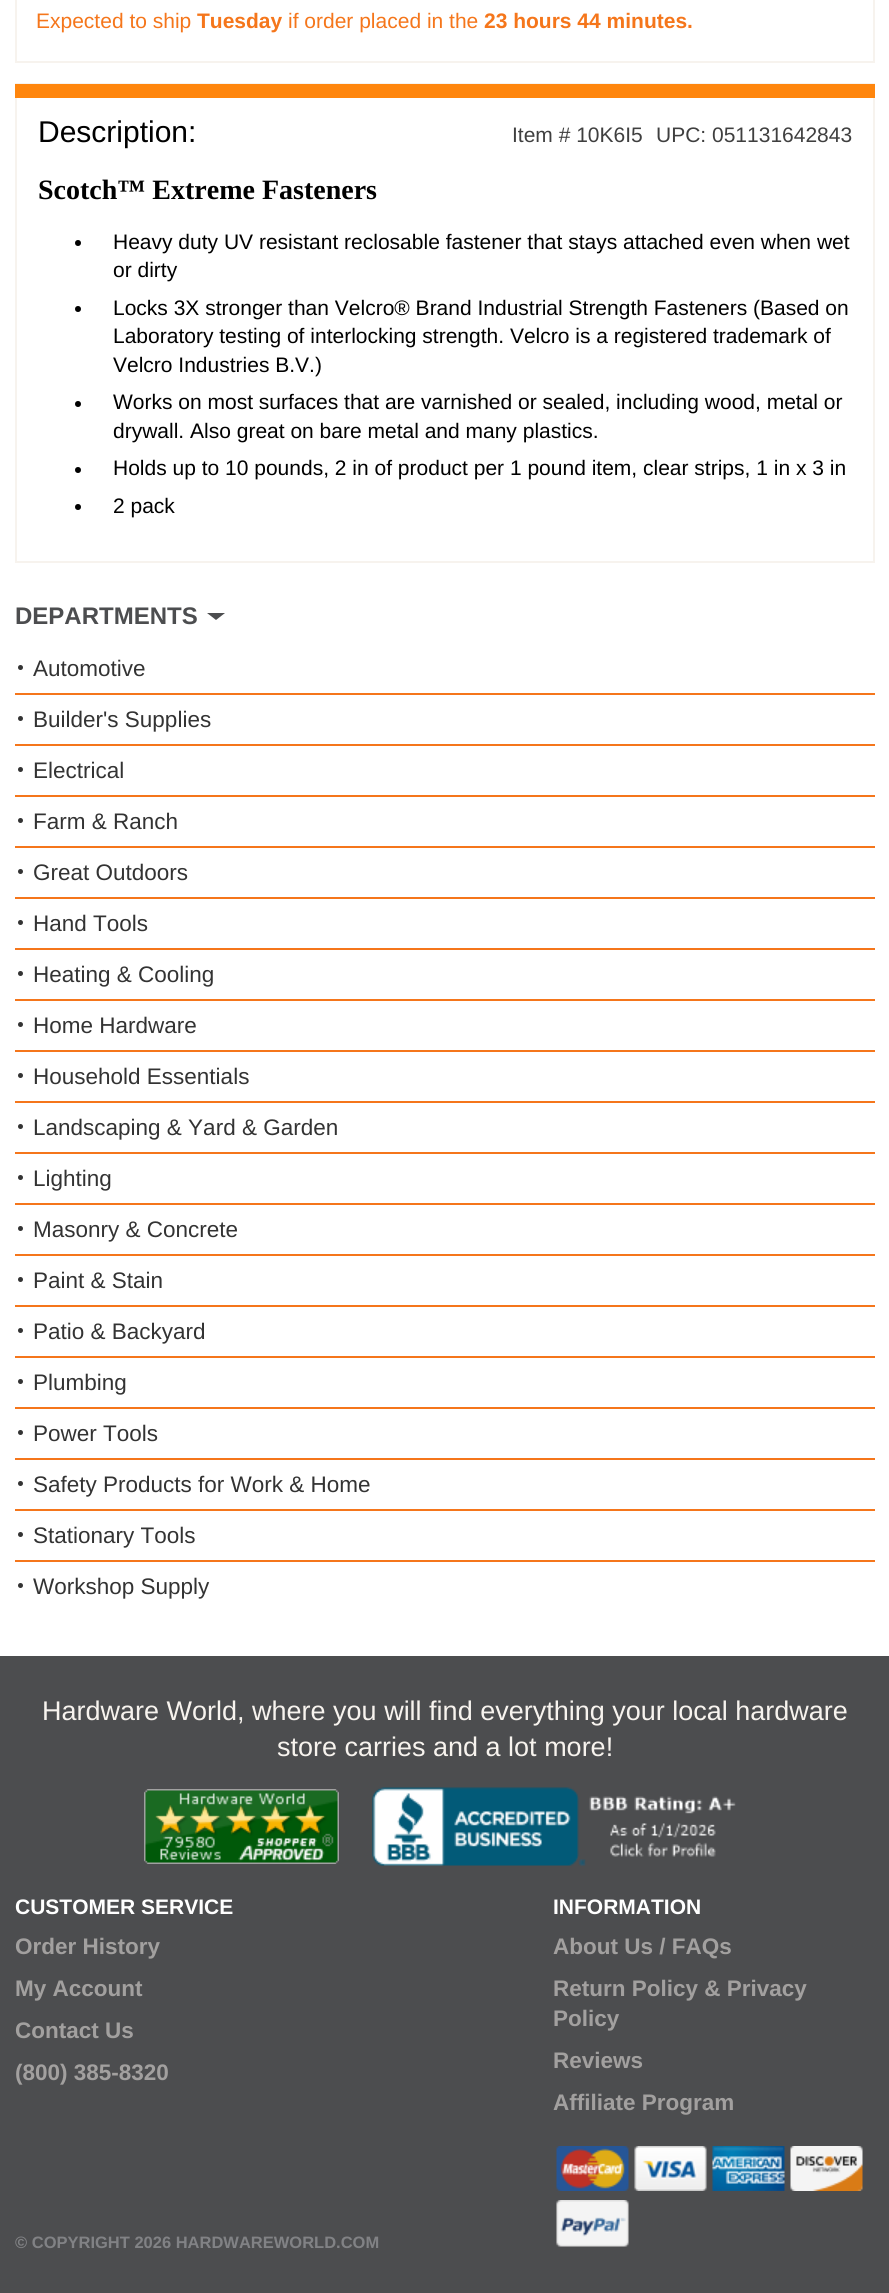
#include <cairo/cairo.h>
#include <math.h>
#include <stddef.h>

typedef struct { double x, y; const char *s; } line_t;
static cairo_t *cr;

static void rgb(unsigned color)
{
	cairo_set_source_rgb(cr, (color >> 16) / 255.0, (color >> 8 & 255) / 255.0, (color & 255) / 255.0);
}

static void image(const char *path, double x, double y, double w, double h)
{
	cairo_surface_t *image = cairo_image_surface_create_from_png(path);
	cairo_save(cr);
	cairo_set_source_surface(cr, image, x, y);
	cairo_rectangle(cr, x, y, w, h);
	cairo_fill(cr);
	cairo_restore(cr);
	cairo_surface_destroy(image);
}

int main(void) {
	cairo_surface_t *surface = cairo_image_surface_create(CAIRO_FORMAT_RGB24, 889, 2293);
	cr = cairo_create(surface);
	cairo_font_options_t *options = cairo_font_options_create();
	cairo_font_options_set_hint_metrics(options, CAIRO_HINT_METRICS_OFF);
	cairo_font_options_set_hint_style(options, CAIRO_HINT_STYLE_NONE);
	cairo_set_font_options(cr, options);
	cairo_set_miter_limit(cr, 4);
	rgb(0xffffff);
	cairo_paint(cr);
	cairo_rectangle(cr, 16, -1, 858, 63);
	rgb(0xf7f3ee);
	cairo_stroke(cr);
	cairo_rectangle(cr, 16, 84, 858, 478);
	cairo_stroke(cr);
	rgb(0xff860d);
	cairo_rectangle(cr, 15, 84, 860, 14);
	cairo_fill(cr);
	rgb(0x000000);
	cairo_arc(cr, 78, 243, 3, 0, 2 * M_PI);
	cairo_fill(cr);
	cairo_arc(cr, 78, 309, 3, 0, 2 * M_PI);
	cairo_fill(cr);
	cairo_arc(cr, 78, 404, 3, 0, 2 * M_PI);
	cairo_fill(cr);
	cairo_arc(cr, 78, 470, 3, 0, 2 * M_PI);
	cairo_fill(cr);
	cairo_arc(cr, 78, 507, 3, 0, 2 * M_PI);
	cairo_fill(cr);
	rgb(0x4c4d4f);
	cairo_new_path(cr);
	cairo_move_to(cr, 207, 613);
	cairo_line_to(cr, 225, 613);
	cairo_line_to(cr, 216, 620);
	cairo_close_path(cr);
	cairo_fill(cr);
	rgb(0x333333);
	cairo_arc(cr, 20.5, 667.5, 2.5, 0, 2 * M_PI);
	cairo_fill(cr);
	rgb(0xf5761b);
	cairo_rectangle(cr, 15, 693, 860, 2);
	cairo_fill(cr);
	rgb(0x333333);
	cairo_arc(cr, 20.5, 718.5, 2.5, 0, 2 * M_PI);
	cairo_fill(cr);
	rgb(0xf5761b);
	cairo_rectangle(cr, 15, 744, 860, 2);
	cairo_fill(cr);
	rgb(0x333333);
	cairo_arc(cr, 20.5, 769.5, 2.5, 0, 2 * M_PI);
	cairo_fill(cr);
	rgb(0xf5761b);
	cairo_rectangle(cr, 15, 795, 860, 2);
	cairo_fill(cr);
	rgb(0x333333);
	cairo_arc(cr, 20.5, 820.5, 2.5, 0, 2 * M_PI);
	cairo_fill(cr);
	rgb(0xf5761b);
	cairo_rectangle(cr, 15, 846, 860, 2);
	cairo_fill(cr);
	rgb(0x333333);
	cairo_arc(cr, 20.5, 871.5, 2.5, 0, 2 * M_PI);
	cairo_fill(cr);
	rgb(0xf5761b);
	cairo_rectangle(cr, 15, 897, 860, 2);
	cairo_fill(cr);
	rgb(0x333333);
	cairo_arc(cr, 20.5, 922.5, 2.5, 0, 2 * M_PI);
	cairo_fill(cr);
	rgb(0xf5761b);
	cairo_rectangle(cr, 15, 948, 860, 2);
	cairo_fill(cr);
	rgb(0x333333);
	cairo_arc(cr, 20.5, 973.5, 2.5, 0, 2 * M_PI);
	cairo_fill(cr);
	rgb(0xf5761b);
	cairo_rectangle(cr, 15, 999, 860, 2);
	cairo_fill(cr);
	rgb(0x333333);
	cairo_arc(cr, 20.5, 1024.5, 2.5, 0, 2 * M_PI);
	cairo_fill(cr);
	rgb(0xf5761b);
	cairo_rectangle(cr, 15, 1050, 860, 2);
	cairo_fill(cr);
	rgb(0x333333);
	cairo_arc(cr, 20.5, 1075.5, 2.5, 0, 2 * M_PI);
	cairo_fill(cr);
	rgb(0xf5761b);
	cairo_rectangle(cr, 15, 1101, 860, 2);
	cairo_fill(cr);
	rgb(0x333333);
	cairo_arc(cr, 20.5, 1126.5, 2.5, 0, 2 * M_PI);
	cairo_fill(cr);
	rgb(0xf5761b);
	cairo_rectangle(cr, 15, 1152, 860, 2);
	cairo_fill(cr);
	rgb(0x333333);
	cairo_arc(cr, 20.5, 1177.5, 2.5, 0, 2 * M_PI);
	cairo_fill(cr);
	rgb(0xf5761b);
	cairo_rectangle(cr, 15, 1203, 860, 2);
	cairo_fill(cr);
	rgb(0x333333);
	cairo_arc(cr, 20.5, 1228.5, 2.5, 0, 2 * M_PI);
	cairo_fill(cr);
	rgb(0xf5761b);
	cairo_rectangle(cr, 15, 1254, 860, 2);
	cairo_fill(cr);
	rgb(0x333333);
	cairo_arc(cr, 20.5, 1279.5, 2.5, 0, 2 * M_PI);
	cairo_fill(cr);
	rgb(0xf5761b);
	cairo_rectangle(cr, 15, 1305, 860, 2);
	cairo_fill(cr);
	rgb(0x333333);
	cairo_arc(cr, 20.5, 1330.5, 2.5, 0, 2 * M_PI);
	cairo_fill(cr);
	rgb(0xf5761b);
	cairo_rectangle(cr, 15, 1356, 860, 2);
	cairo_fill(cr);
	rgb(0x333333);
	cairo_arc(cr, 20.5, 1381.5, 2.5, 0, 2 * M_PI);
	cairo_fill(cr);
	rgb(0xf5761b);
	cairo_rectangle(cr, 15, 1407, 860, 2);
	cairo_fill(cr);
	rgb(0x333333);
	cairo_arc(cr, 20.5, 1432.5, 2.5, 0, 2 * M_PI);
	cairo_fill(cr);
	rgb(0xf5761b);
	cairo_rectangle(cr, 15, 1458, 860, 2);
	cairo_fill(cr);
	rgb(0x333333);
	cairo_arc(cr, 20.5, 1483.5, 2.5, 0, 2 * M_PI);
	cairo_fill(cr);
	rgb(0xf5761b);
	cairo_rectangle(cr, 15, 1509, 860, 2);
	cairo_fill(cr);
	rgb(0x333333);
	cairo_arc(cr, 20.5, 1534.5, 2.5, 0, 2 * M_PI);
	cairo_fill(cr);
	rgb(0xf5761b);
	cairo_rectangle(cr, 15, 1560, 860, 2);
	cairo_fill(cr);
	rgb(0x333333);
	cairo_arc(cr, 20.5, 1585.5, 2.5, 0, 2 * M_PI);
	cairo_fill(cr);
	rgb(0x4c4d4f);
	cairo_rectangle(cr, 0, 1656, 889, 637);
	cairo_fill(cr);
	image("img/1.png", 144, 1789, 195, 75);
	image("img/2.png", 372, 1787, 364, 79);
	image("img/3.png", 556, 2146, 73, 45);
	image("img/4.png", 634, 2146, 73, 45);
	image("img/5.png", 712, 2146, 73, 45);
	image("img/6.png", 790, 2146, 73, 45);
	image("img/7.png", 556, 2200, 73, 47);
	cairo_select_font_face(cr, "Liberation Sans", CAIRO_FONT_SLANT_NORMAL, CAIRO_FONT_WEIGHT_NORMAL);
	cairo_set_font_size(cr, 21);
	rgb(0xf5761b);
	cairo_move_to(cr, 36, 28);
	cairo_show_text(cr, "Expected to ship");
	cairo_select_font_face(cr, "Liberation Sans", CAIRO_FONT_SLANT_NORMAL, CAIRO_FONT_WEIGHT_BOLD);
	cairo_move_to(cr, 197, 28);
	cairo_show_text(cr, "Tuesday");
	cairo_select_font_face(cr, "Liberation Sans", CAIRO_FONT_SLANT_NORMAL, CAIRO_FONT_WEIGHT_NORMAL);
	cairo_move_to(cr, 288, 28);
	cairo_show_text(cr, "if order placed in the");
	cairo_select_font_face(cr, "Liberation Sans", CAIRO_FONT_SLANT_NORMAL, CAIRO_FONT_WEIGHT_BOLD);
	cairo_move_to(cr, 484, 28);
	cairo_show_text(cr, "23 hours 44 minutes.");
	cairo_select_font_face(cr, "Liberation Sans", CAIRO_FONT_SLANT_NORMAL, CAIRO_FONT_WEIGHT_NORMAL);
	cairo_set_font_size(cr, 30);
	rgb(0x000000);
	cairo_move_to(cr, 38, 142);
	cairo_show_text(cr, "Description:");
	cairo_set_font_size(cr, 21);
	rgb(0x3f3f3f);
	cairo_move_to(cr, 512, 142);
	cairo_show_text(cr, "Item # 10K6I5");
	cairo_move_to(cr, 656, 142);
	cairo_show_text(cr, "UPC: 051131642843");
	cairo_select_font_face(cr, "Liberation Serif", CAIRO_FONT_SLANT_NORMAL, CAIRO_FONT_WEIGHT_BOLD);
	cairo_set_font_size(cr, 28);
	rgb(0x000000);
	cairo_move_to(cr, 38, 199);
	cairo_show_text(cr, "Scotch™ Extreme Fasteners");
	cairo_select_font_face(cr, "Liberation Sans", CAIRO_FONT_SLANT_NORMAL, CAIRO_FONT_WEIGHT_NORMAL);
	cairo_set_font_size(cr, 21);
	{
		static const line_t items[] = {
			{113, 249, "Heavy duty UV resistant reclosable fastener that stays attached even when wet"},
			{113, 277, "or dirty"},
			{113, 315, "Locks 3X stronger than Velcro® Brand Industrial Strength Fasteners (Based on"},
			{113, 343, "Laboratory testing of interlocking strength. Velcro is a registered trademark of"},
			{113, 372, "Velcro Industries B.V.)"},
			{113, 409, "Works on most surfaces that are varnished or sealed, including wood, metal or"},
			{113, 438, "drywall. Also great on bare metal and many plastics."},
			{113, 475, "Holds up to 10 pounds, 2 in of product per 1 pound item, clear strips, 1 in x 3 in"},
			{113, 513, "2 pack"},
		};
		for (size_t i = 0; i < sizeof items / sizeof *items; i++) {
			cairo_move_to(cr, items[i].x, items[i].y);
			cairo_show_text(cr, items[i].s);
		}
	}
	cairo_select_font_face(cr, "Liberation Sans", CAIRO_FONT_SLANT_NORMAL, CAIRO_FONT_WEIGHT_BOLD);
	cairo_set_font_size(cr, 24);
	rgb(0x4c4d4f);
	cairo_move_to(cr, 15, 624);
	cairo_show_text(cr, "DEPARTMENTS");
	cairo_select_font_face(cr, "Liberation Sans", CAIRO_FONT_SLANT_NORMAL, CAIRO_FONT_WEIGHT_NORMAL);
	cairo_set_font_size(cr, 22.5);
	rgb(0x333333);
	{
		static const line_t items[] = {
			{33, 676, "Automotive"},
			{33, 727, "Builder's Supplies"},
			{33, 778, "Electrical"},
			{33, 829, "Farm & Ranch"},
			{33, 880, "Great Outdoors"},
			{33, 931, "Hand Tools"},
			{33, 982, "Heating & Cooling"},
			{33, 1033, "Home Hardware"},
			{33, 1084, "Household Essentials"},
			{33, 1135, "Landscaping & Yard & Garden"},
			{33, 1186, "Lighting"},
			{33, 1237, "Masonry & Concrete"},
			{33, 1288, "Paint & Stain"},
			{33, 1339, "Patio & Backyard"},
			{33, 1390, "Plumbing"},
			{33, 1441, "Power Tools"},
			{33, 1492, "Safety Products for Work & Home"},
			{33, 1543, "Stationary Tools"},
			{33, 1594, "Workshop Supply"},
		};
		for (size_t i = 0; i < sizeof items / sizeof *items; i++) {
			cairo_move_to(cr, items[i].x, items[i].y);
			cairo_show_text(cr, items[i].s);
		}
	}
	cairo_set_font_size(cr, 27);
	rgb(0xf7f3ee);
	cairo_move_to(cr, 42, 1720);
	cairo_show_text(cr, "Hardware World, where you will find everything your local hardware");
	cairo_move_to(cr, 277, 1756);
	cairo_show_text(cr, "store carries and a lot more!");
	cairo_select_font_face(cr, "Liberation Sans", CAIRO_FONT_SLANT_NORMAL, CAIRO_FONT_WEIGHT_BOLD);
	cairo_set_font_size(cr, 21);
	rgb(0xffffff);
	cairo_move_to(cr, 15, 1914);
	cairo_show_text(cr, "CUSTOMER SERVICE");
	cairo_set_font_size(cr, 22.5);
	rgb(0xa2a09f);
	{
		static const line_t items[] = {
			{15, 1954, "Order History"},
			{15, 1996, "My Account"},
			{15, 2038, "Contact Us"},
			{15, 2080, "(800) 385-8320"},
		};
		for (size_t i = 0; i < sizeof items / sizeof *items; i++) {
			cairo_move_to(cr, items[i].x, items[i].y);
			cairo_show_text(cr, items[i].s);
		}
	}
	cairo_set_font_size(cr, 21);
	rgb(0xffffff);
	cairo_move_to(cr, 553, 1914);
	cairo_show_text(cr, "INFORMATION");
	cairo_set_font_size(cr, 22.5);
	rgb(0xa2a09f);
	{
		static const line_t items[] = {
			{553, 1954, "About Us / FAQs"},
			{553, 1996, "Return Policy & Privacy"},
			{553, 2026, "Policy"},
			{553, 2068, "Reviews"},
			{553, 2110, "Affiliate Program"},
		};
		for (size_t i = 0; i < sizeof items / sizeof *items; i++) {
			cairo_move_to(cr, items[i].x, items[i].y);
			cairo_show_text(cr, items[i].s);
		}
	}
	cairo_set_font_size(cr, 16.5);
	rgb(0x818285);
	cairo_move_to(cr, 15, 2248);
	cairo_show_text(cr, "© COPYRIGHT 2026 HARDWAREWORLD.COM");
	cairo_surface_write_to_png(surface, "page.png");
	cairo_font_options_destroy(options);
	cairo_destroy(cr);
	cairo_surface_destroy(surface);
	return 0;
}
